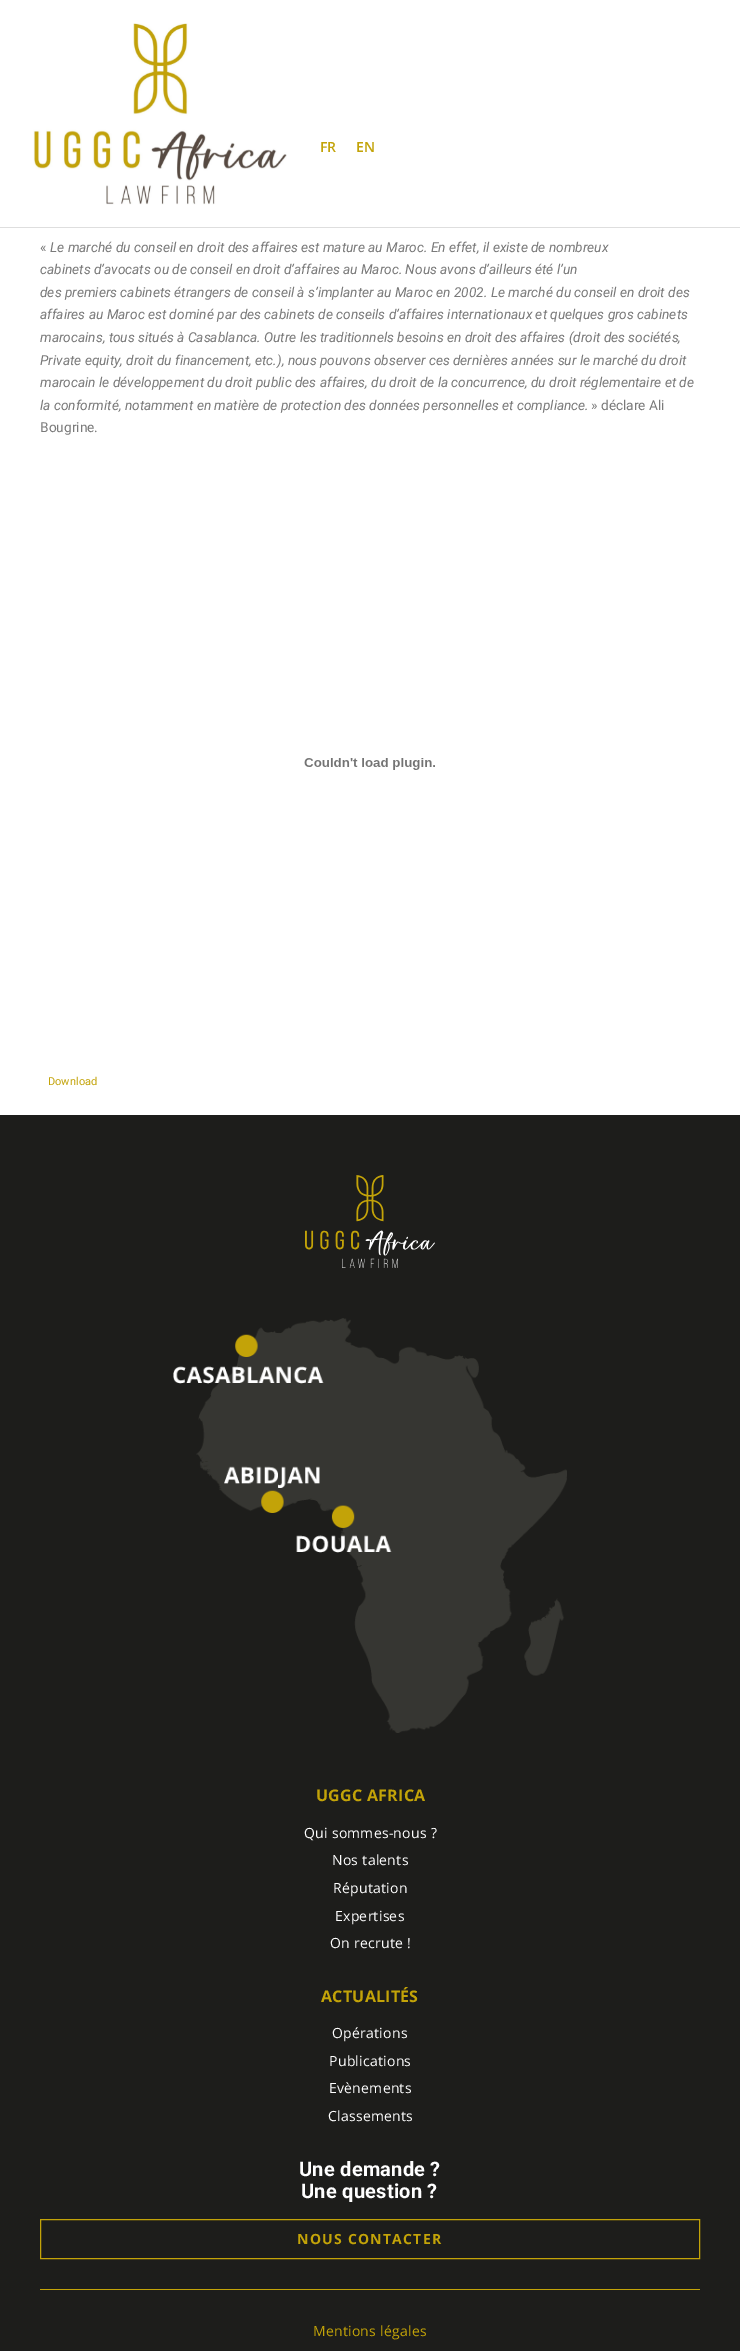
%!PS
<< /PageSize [740 2351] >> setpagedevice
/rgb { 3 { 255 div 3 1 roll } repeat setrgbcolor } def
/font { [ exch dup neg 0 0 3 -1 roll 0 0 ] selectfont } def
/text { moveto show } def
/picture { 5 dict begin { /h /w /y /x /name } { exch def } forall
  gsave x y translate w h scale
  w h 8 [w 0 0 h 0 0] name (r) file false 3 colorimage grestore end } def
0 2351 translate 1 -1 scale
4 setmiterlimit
255 255 255 rgb
0 0 740 2351 rectfill
222 222 222 rgb
0 227 740 1 rectfill
(img_01.rgb) 33 23 254 182 picture
(img_02.rgb) 304 758 131 12 picture
29 29 27 rgb
0 1115 740 1236 rectfill
(img_03.rgb) 305 1175 130 93 picture
(img_04.rgb) 173 1318 394 415 picture
195 163 8 rgb
40.5 2219.5 659 39 rectstroke
40 2289 660 1 rectfill
/OpenSans-SemiBold 14 font
(FR) 320 152 text
(EN) 356 152 text
/Roboto-Regular 13.7 font
122 122 122 rgb
(«) 40 252 text
/Roboto-Italic 13.7 font
(Le marché du conseil en droit des affaires est mature au Maroc. En effet, il existe de nombreux) 50 252 text
(cabinets d’avocats ou de conseil en droit d’affaires au Maroc. Nous avons d’ailleurs été l’un) 40 274 text
(des premiers cabinets étrangers de conseil à s’implanter au Maroc en 2002. Le marché du conseil en droit des) 40 297 text
(affaires au Maroc est dominé par des cabinets de conseils d’affaires internationaux et quelques gros cabinets) 40 319 text
(marocains, tous situés à Casablanca. Outre les traditionnels besoins en droit des affaires \(droit des sociétés,) 40 342 text
(Private equity, droit du financement, etc.\), nous pouvons observer ces dernières années sur le marché du droit) 40 365 text
(marocain le développement du droit public des affaires, du droit de la concurrence, du droit réglementaire et de) 40 387 text
(la conformité, notamment en matière de protection des données personnelles et compliance.) 40 410 text
/Roboto-Regular 13.7 font
(» déclare Ali) 591 410 text
(Bougrine.) 40 432 text
/Roboto-Regular 11 font
195 163 8 rgb
(Download) 48 1085 text
/OpenSans-Bold 16 font
316 1801 moveto 0.25 0 (UGGC AFRICA) ashow
/OpenSans-Regular 14 font
255 255 255 rgb
304 1838 moveto 0.25 0 (Qui sommes-nous ?) ashow
332 1865 moveto 0.25 0 (Nos talents) ashow
333 1893 moveto 0.25 0 (Réputation) ashow
335 1921 moveto 0.25 0 (Expertises) ashow
330 1948 moveto 0.25 0 (On recrute !) ashow
/OpenSans-Bold 16 font
195 163 8 rgb
321 2002 moveto 0.25 0 (ACTUALITÉS) ashow
/OpenSans-Regular 14 font
255 255 255 rgb
332 2038 moveto 0.25 0 (Opérations) ashow
329 2066 moveto 0.25 0 (Publications) ashow
329 2093 moveto 0.25 0 (Evènements) ashow
328 2121 moveto 0.25 0 (Classements) ashow
/Roboto-Bold 20 font
299 2176 moveto 0.25 0 (Une demande ?) ashow
301 2198 moveto 0.25 0 (Une question ?) ashow
/OpenSans-Bold 14 font
195 163 8 rgb
297 2244 moveto 1.25 0 (NOUS CONTACTER) ashow
/OpenSans-Regular 14 font
313 2336 moveto 0.25 0 (Mentions légales) ashow
showpage
